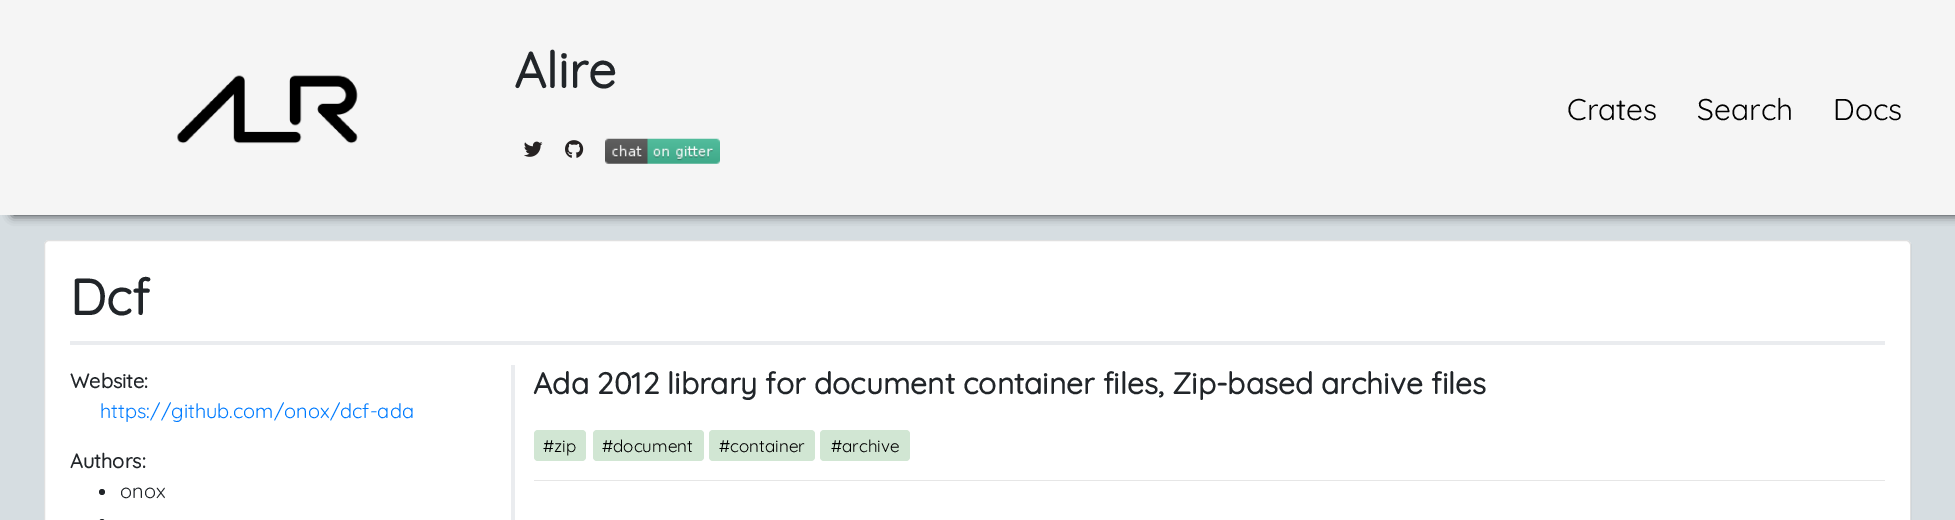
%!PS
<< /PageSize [1955 520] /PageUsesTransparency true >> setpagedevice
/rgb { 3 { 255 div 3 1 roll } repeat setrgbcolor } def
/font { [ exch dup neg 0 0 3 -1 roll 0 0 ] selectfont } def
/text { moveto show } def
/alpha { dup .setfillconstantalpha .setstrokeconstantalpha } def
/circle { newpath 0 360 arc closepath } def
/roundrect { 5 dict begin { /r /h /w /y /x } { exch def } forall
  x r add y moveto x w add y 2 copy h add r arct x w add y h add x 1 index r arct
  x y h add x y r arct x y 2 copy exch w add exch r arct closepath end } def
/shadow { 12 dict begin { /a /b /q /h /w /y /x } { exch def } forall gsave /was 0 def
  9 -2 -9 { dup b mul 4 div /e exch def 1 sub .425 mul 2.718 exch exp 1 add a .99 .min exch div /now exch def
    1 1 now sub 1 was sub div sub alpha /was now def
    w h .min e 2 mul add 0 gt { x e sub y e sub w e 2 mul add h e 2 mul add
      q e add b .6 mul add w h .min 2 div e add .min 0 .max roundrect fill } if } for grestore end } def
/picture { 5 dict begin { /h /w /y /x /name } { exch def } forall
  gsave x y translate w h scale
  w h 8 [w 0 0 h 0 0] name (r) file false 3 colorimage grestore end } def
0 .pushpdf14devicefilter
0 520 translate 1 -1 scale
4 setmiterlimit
214 221 225 rgb
0 0 1955 520 rectfill
33 37 41 rgb
13 0 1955 215 0 5 1 shadow
245 245 245 rgb
0 0 1955 215 rectfill
(img_01.rgb) 524 141 19 16 picture
(img_02.rgb) 565 140 19 18 picture
(img_03.rgb) 605 138 115 26 picture
(img_04.rgb) 177 75 181 69 picture
255 255 255 rgb
44 240 1867 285 5 roundrect fill
0.12 alpha
0 0 0 rgb
44.5 240.5 1866 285 4.5 roundrect stroke
1 alpha
234 236 239 rgb
70 341 1815 4 rectfill
511 365 4 155 rectfill
33 37 41 rgb
102 492 3 circle fill
99 519 6 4 3 roundrect fill
209 230 211 rgb
534 430 52 31 4 roundrect fill
593 430 111 31 4 roundrect fill
709 430 106 31 4 roundrect fill
820 430 90 31 4 roundrect fill
230 230 230 rgb
534 480 1351 1 rectfill
/Quicksand-Bold 50 font
33 37 41 rgb
(Alire) 514 88 text
/Quicksand-Light 30 font
0 0 0 rgb
(Crates) 1567 120 text
(Search) 1697 120 text
(Docs) 1833 120 text
/Quicksand-Bold 50 font
33 37 41 rgb
(Dcf) 70 315 text
/Quicksand-Bold 20 font
(Website:) 70 388 text
/Quicksand-Light 20 font
0 123 255 rgb
(https://github.com/onox/dcf-ada) 100 418 text
/Quicksand-Bold 20 font
33 37 41 rgb
(Authors:) 70 468 text
/Quicksand-Light 20 font
(onox) 120 498 text
/Quicksand-Bold 30 font
(Ada 2012 library for document container files, Zip-based archive files) 533 394 text
/Quicksand-Light 17 font
0 0 0 rgb
(#zip) 543 452 text
(#document) 602 452 text
(#container) 719 452 text
(#archive) 831 452 text
.poppdf14devicefilter showpage
